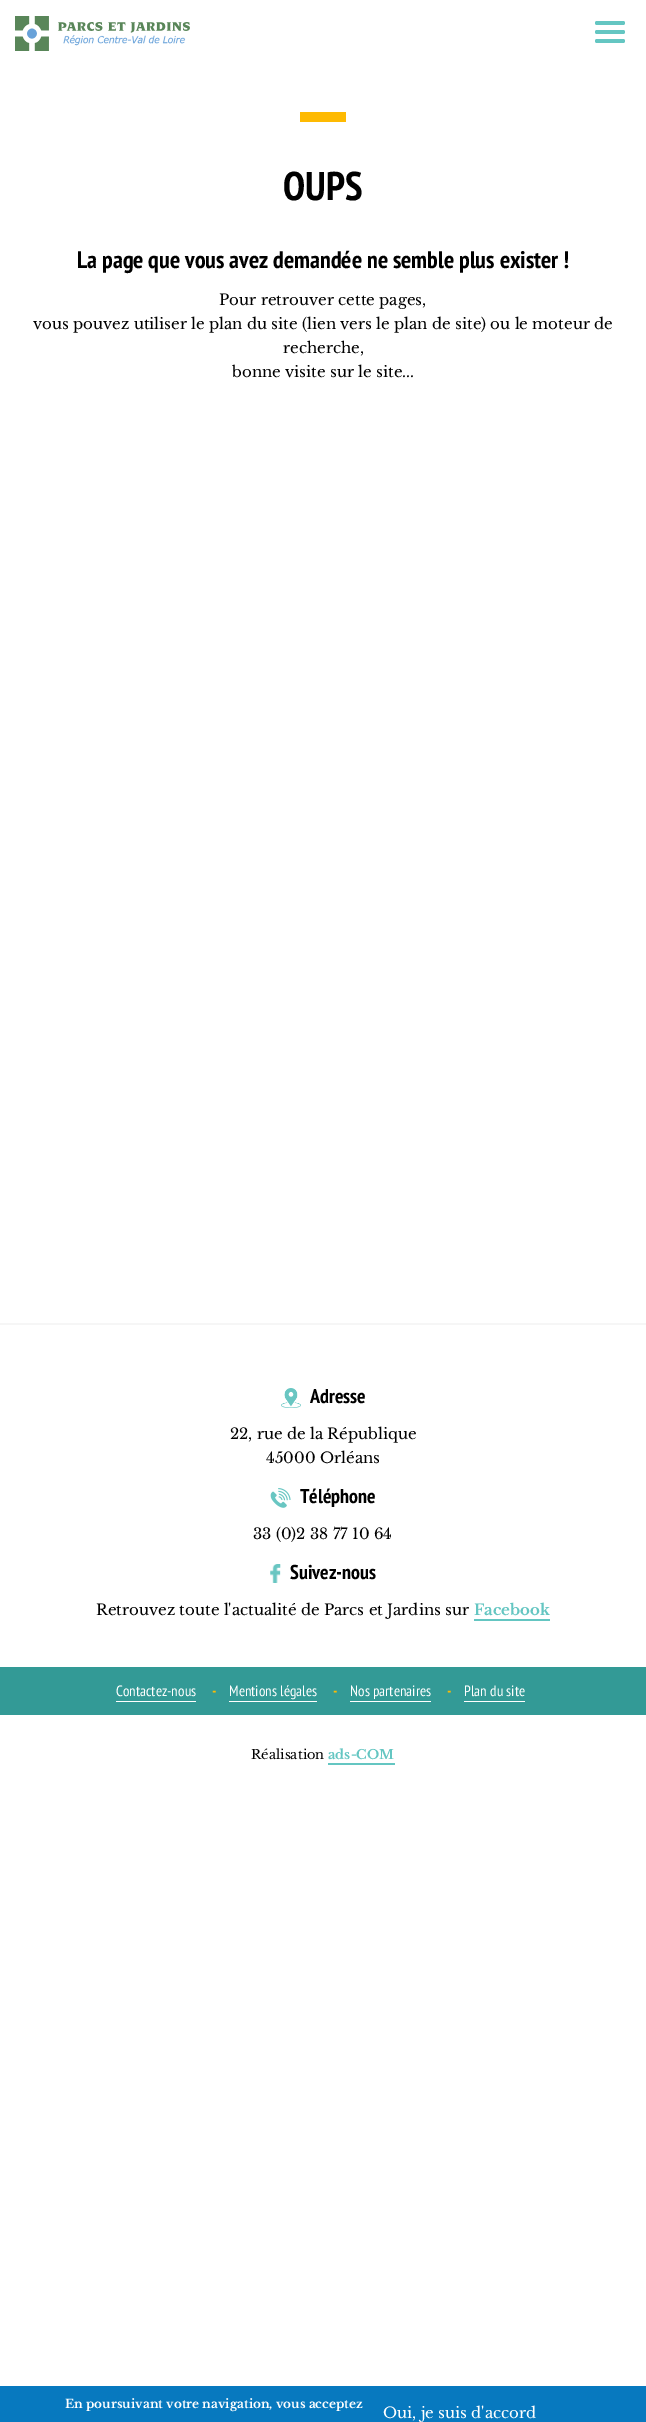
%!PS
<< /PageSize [646 2422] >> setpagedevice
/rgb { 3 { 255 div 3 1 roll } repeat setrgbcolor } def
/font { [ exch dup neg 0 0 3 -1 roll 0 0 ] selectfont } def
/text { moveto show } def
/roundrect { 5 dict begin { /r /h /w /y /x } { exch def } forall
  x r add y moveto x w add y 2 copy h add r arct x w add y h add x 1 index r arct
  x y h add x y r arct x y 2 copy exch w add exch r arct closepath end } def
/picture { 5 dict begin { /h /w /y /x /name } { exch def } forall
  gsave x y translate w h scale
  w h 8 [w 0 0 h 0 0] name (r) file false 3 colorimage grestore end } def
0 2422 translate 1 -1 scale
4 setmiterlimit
255 255 255 rgb
0 0 646 2422 rectfill
(img_01.rgb) 15 16 175 35 picture
100 198 194 rgb
595 21 30 4 2 roundrect fill
595 30 30 4 2 roundrect fill
595 39 30 4 2 roundrect fill
254 186 2 rgb
300 112 46 10 rectfill
246 246 246 rgb
0 1323 646 2 rectfill
(img_02.rgb) 281 1388 20 20 picture
(img_03.rgb) 270 1488 21 20 picture
(img_04.rgb) 270 1564 11 19 picture
100 198 194 rgb
474 1619 76 2 rectfill
51 154 150 rgb
0 1667 646 48 rectfill
255 255 255 rgb
116 1701 80 1 rectfill
229 1701 88 1 rectfill
350 1701 81 1 rectfill
464 1701 61 1 rectfill
100 198 194 rgb
328 1763 67 2 rectfill
7 121 191 rgb
0 2386 646 36 rectfill
/PTSansNarrow-Bold 40 font
0 0 0 rgb
(OUPS) 283 200 text
/PTSansNarrow-Bold 24 font
(La page que vous avez demandée ne semble plus exister !) 77 268 text
/LibreBaskerville-Regular 15 font
(Pour retrouver cette pages,) 219 305 text
(vous pouvez utiliser le plan du site \(lien vers le plan de site\) ou le moteur de) 33 329 text
(recherche,) 283 353 text
(bonne visite sur le site...) 232 377 text
/PTSansNarrow-Bold 20 font
(Adresse) 310 1403 text
/LibreBaskerville-Regular 15 font
(22, rue de la République) 230 1439 text
(45000 Orléans) 266 1463 text
/PTSansNarrow-Bold 20 font
(Téléphone) 300 1503 text
/LibreBaskerville-Regular 15 font
(33 \(0\)2 38 77 10 64) 253 1539 text
/PTSansNarrow-Bold 20 font
(Suivez-nous) 290 1579 text
/LibreBaskerville-Regular 15 font
(Retrouvez toute l'actualité de Parcs et Jardins sur) 96 1615 text
/LibreBaskerville-Bold 15 font
100 198 194 rgb
(Facebook) 474 1615 text
/PTSansNarrow-Regular 15 font
255 255 255 rgb
(Contactez-nous) 116 1696 text
/PTSansNarrow-Bold 15 font
254 186 2 rgb
(-) 212 1696 text
/PTSansNarrow-Regular 15 font
255 255 255 rgb
(Mentions légales) 229 1696 text
/PTSansNarrow-Bold 15 font
254 186 2 rgb
(-) 333 1696 text
/PTSansNarrow-Regular 15 font
255 255 255 rgb
(Nos partenaires) 350 1696 text
/PTSansNarrow-Bold 15 font
254 186 2 rgb
(-) 447 1696 text
/PTSansNarrow-Regular 15 font
255 255 255 rgb
(Plan du site) 464 1696 text
/LibreBaskerville-Regular 13 font
0 0 0 rgb
(Réalisation) 251 1759 text
/LibreBaskerville-Bold 13 font
100 198 194 rgb
(ads-COM) 328 1759 text
/LibreBaskerville-Bold 12 font
255 255 255 rgb
(En poursuivant votre navigation, vous acceptez) 65 2408 text
/LibreBaskerville-Regular 15 font
(Oui, je suis d'accord) 383 2418 text
showpage
